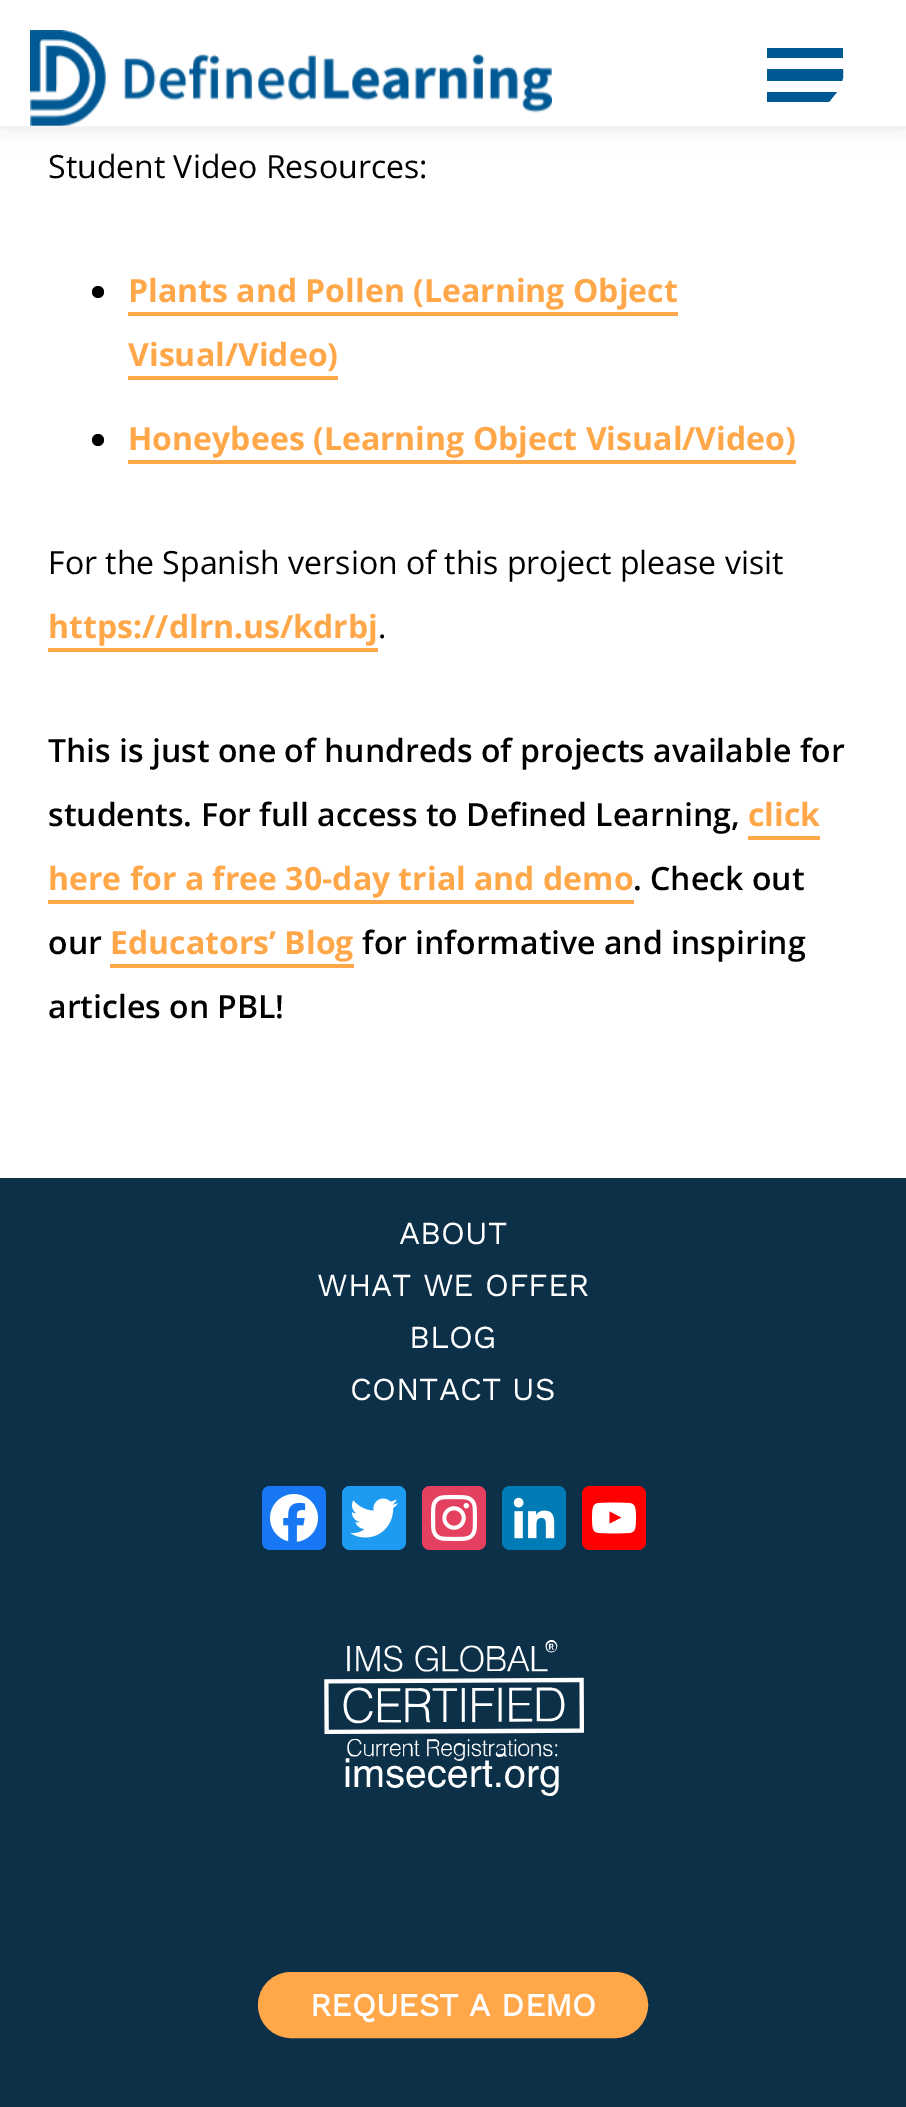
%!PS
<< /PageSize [906 2107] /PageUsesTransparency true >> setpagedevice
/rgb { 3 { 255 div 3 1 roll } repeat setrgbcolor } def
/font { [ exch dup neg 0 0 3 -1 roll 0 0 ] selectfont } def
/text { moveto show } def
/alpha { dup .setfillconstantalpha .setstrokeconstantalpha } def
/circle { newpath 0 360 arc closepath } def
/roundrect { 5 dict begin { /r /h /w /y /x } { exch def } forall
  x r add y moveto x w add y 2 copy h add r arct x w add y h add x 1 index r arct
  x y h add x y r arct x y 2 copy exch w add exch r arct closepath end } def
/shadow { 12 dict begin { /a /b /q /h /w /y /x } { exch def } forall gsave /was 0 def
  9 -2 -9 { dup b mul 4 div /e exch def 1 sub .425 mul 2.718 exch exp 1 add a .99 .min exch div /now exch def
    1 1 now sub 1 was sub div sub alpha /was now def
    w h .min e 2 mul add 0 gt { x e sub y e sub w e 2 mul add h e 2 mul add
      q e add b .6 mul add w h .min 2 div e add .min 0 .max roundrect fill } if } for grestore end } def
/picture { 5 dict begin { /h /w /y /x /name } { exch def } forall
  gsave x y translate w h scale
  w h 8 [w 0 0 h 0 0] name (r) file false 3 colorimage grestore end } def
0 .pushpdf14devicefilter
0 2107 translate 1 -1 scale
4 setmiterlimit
255 255 255 rgb
0 0 906 2107 rectfill
0 0 0 rgb
0 -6 906 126 0 15 0.16 shadow
255 255 255 rgb
0 0 906 126 rectfill
(img_01.rgb) 30 30 522 96 picture
0 89 148 rgb
767 102 moveto 0 -10 rlineto 70 0 rlineto -8 10 rlineto closepath 767 81 moveto 0 -12 rlineto 76 0 rlineto 0 4 1 8 -1 12 rcurveto closepath 767 48 moveto 76 0 rlineto 0 10 rlineto -76 0 rlineto closepath eofill
0 0 0 rgb
98 292 6 circle fill
255 167 73 rgb
128 312 550 4 rectfill
128 376 210 4 rectfill
0 0 0 rgb
98 440 6 circle fill
255 167 73 rgb
128 460 668 4 rectfill
48 648 330 4 rectfill
748 836 72 4 rectfill
48 900 586 4 rectfill
110 964 244 4 rectfill
12 48 72 rgb
0 1178 906 929 rectfill
24 119 242 rgb
262 1486 64 64 8 roundrect fill
(img_02.rgb) 270 1494 48 48 picture
29 155 240 rgb
342 1486 64 64 8 roundrect fill
(img_03.rgb) 350 1498 48 40 picture
228 64 95 rgb
422 1486 64 64 8 roundrect fill
(img_04.rgb) 431 1495 46 46 picture
0 123 181 rgb
502 1486 64 64 8 roundrect fill
(img_05.rgb) 513 1497 42 42 picture
255 0 0 rgb
582 1486 64 64 8 roundrect fill
(img_06.rgb) 592 1502 44 32 picture
(img_07.rgb) 324 1640 260 156 picture
255 167 73 rgb
260 1974 386 62 31 roundrect gsave fill grestore
4 setlinewidth
stroke
/OpenSans-Regular 32 font
0 0 0 rgb
(Student Video Resources:) 48 178 text
/OpenSans-Bold 32 font
255 167 73 rgb
(Plants and Pollen \(Learning Object) 128 302 text
(Visual/Video\)) 128 366 text
(Honeybees \(Learning Object Visual/Video\)) 128 450 text
/OpenSans-Regular 32 font
0 0 0 rgb
(For the Spanish version of this project please visit) 48 574 text
/OpenSans-Bold 32 font
255 167 73 rgb
(https://dlrn.us/kdrbj) 48 638 text
/OpenSans-Regular 32 font
0 0 0 rgb
(.) 378 638 text
/OpenSans-SemiBold 32 font
(This is just one of hundreds of projects available for) 48 762 text
(students. For full access to Defined Learning,) 48 826 text
/OpenSans-Bold 32 font
255 167 73 rgb
(click) 748 826 text
(here for a free 30-day trial and demo) 48 890 text
/OpenSans-SemiBold 32 font
0 0 0 rgb
(. Check out) 633 890 text
(our) 48 954 text
/OpenSans-Bold 32 font
255 167 73 rgb
(Educators’ Blog) 110 954 text
/OpenSans-SemiBold 32 font
0 0 0 rgb
(for informative and inspiring) 362 954 text
(articles on PBL!) 48 1018 text
/WorkSans-Regular 32 font
255 255 255 rgb
(ABOUT) 399 1244 text
(WHAT WE OFFER) 317 1296 text
(BLOG) 409 1348 text
(CONTACT US) 350 1400 text
/WorkSans-Bold 32 font
(REQUEST A DEMO) 310 2016 text
.poppdf14devicefilter showpage
